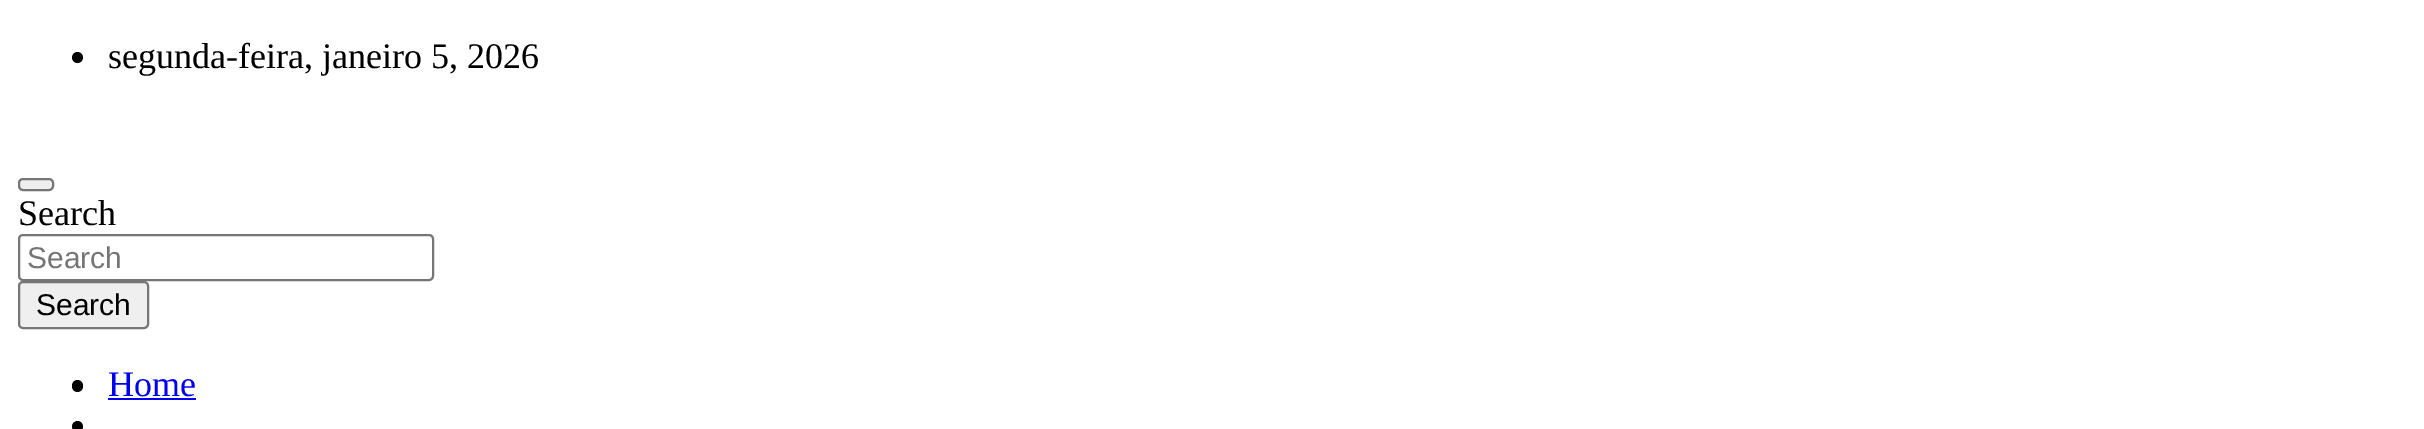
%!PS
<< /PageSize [2424 429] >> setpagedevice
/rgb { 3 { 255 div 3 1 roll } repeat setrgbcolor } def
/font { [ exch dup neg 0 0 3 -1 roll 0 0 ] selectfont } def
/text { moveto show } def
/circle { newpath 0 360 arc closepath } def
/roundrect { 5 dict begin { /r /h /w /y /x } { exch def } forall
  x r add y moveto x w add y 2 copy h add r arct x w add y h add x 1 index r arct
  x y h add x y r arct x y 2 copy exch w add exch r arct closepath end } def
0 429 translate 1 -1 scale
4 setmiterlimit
255 255 255 rgb
0 0 2424 429 rectfill
0 0 0 rgb
77.5 57.5 5.5 circle fill
239 239 239 rgb
19 179 34 11 4 roundrect gsave fill grestore
118 118 118 rgb
2 setlinewidth
stroke
19 235 414 45 4 roundrect stroke
239 239 239 rgb
19 282 129 46 4 roundrect gsave fill grestore
118 118 118 rgb
stroke
0 0 0 rgb
72 380 11 12 5.5 roundrect fill
0 0 238 rgb
108 398 88 2 rectfill
0 0 0 rgb
77.5 426.5 5.5 circle fill
/LiberationSerif-Regular 36 font
(segunda-feira, janeiro 5, 2026) 108 68 text
(Search) 18 225 text
/LiberationSans-Regular 30 font
117 117 117 rgb
(Search) 27 268 text
0 0 0 rgb
(Search) 36 315 text
/LiberationSerif-Regular 36 font
0 0 238 rgb
(Home) 108 396 text
showpage
